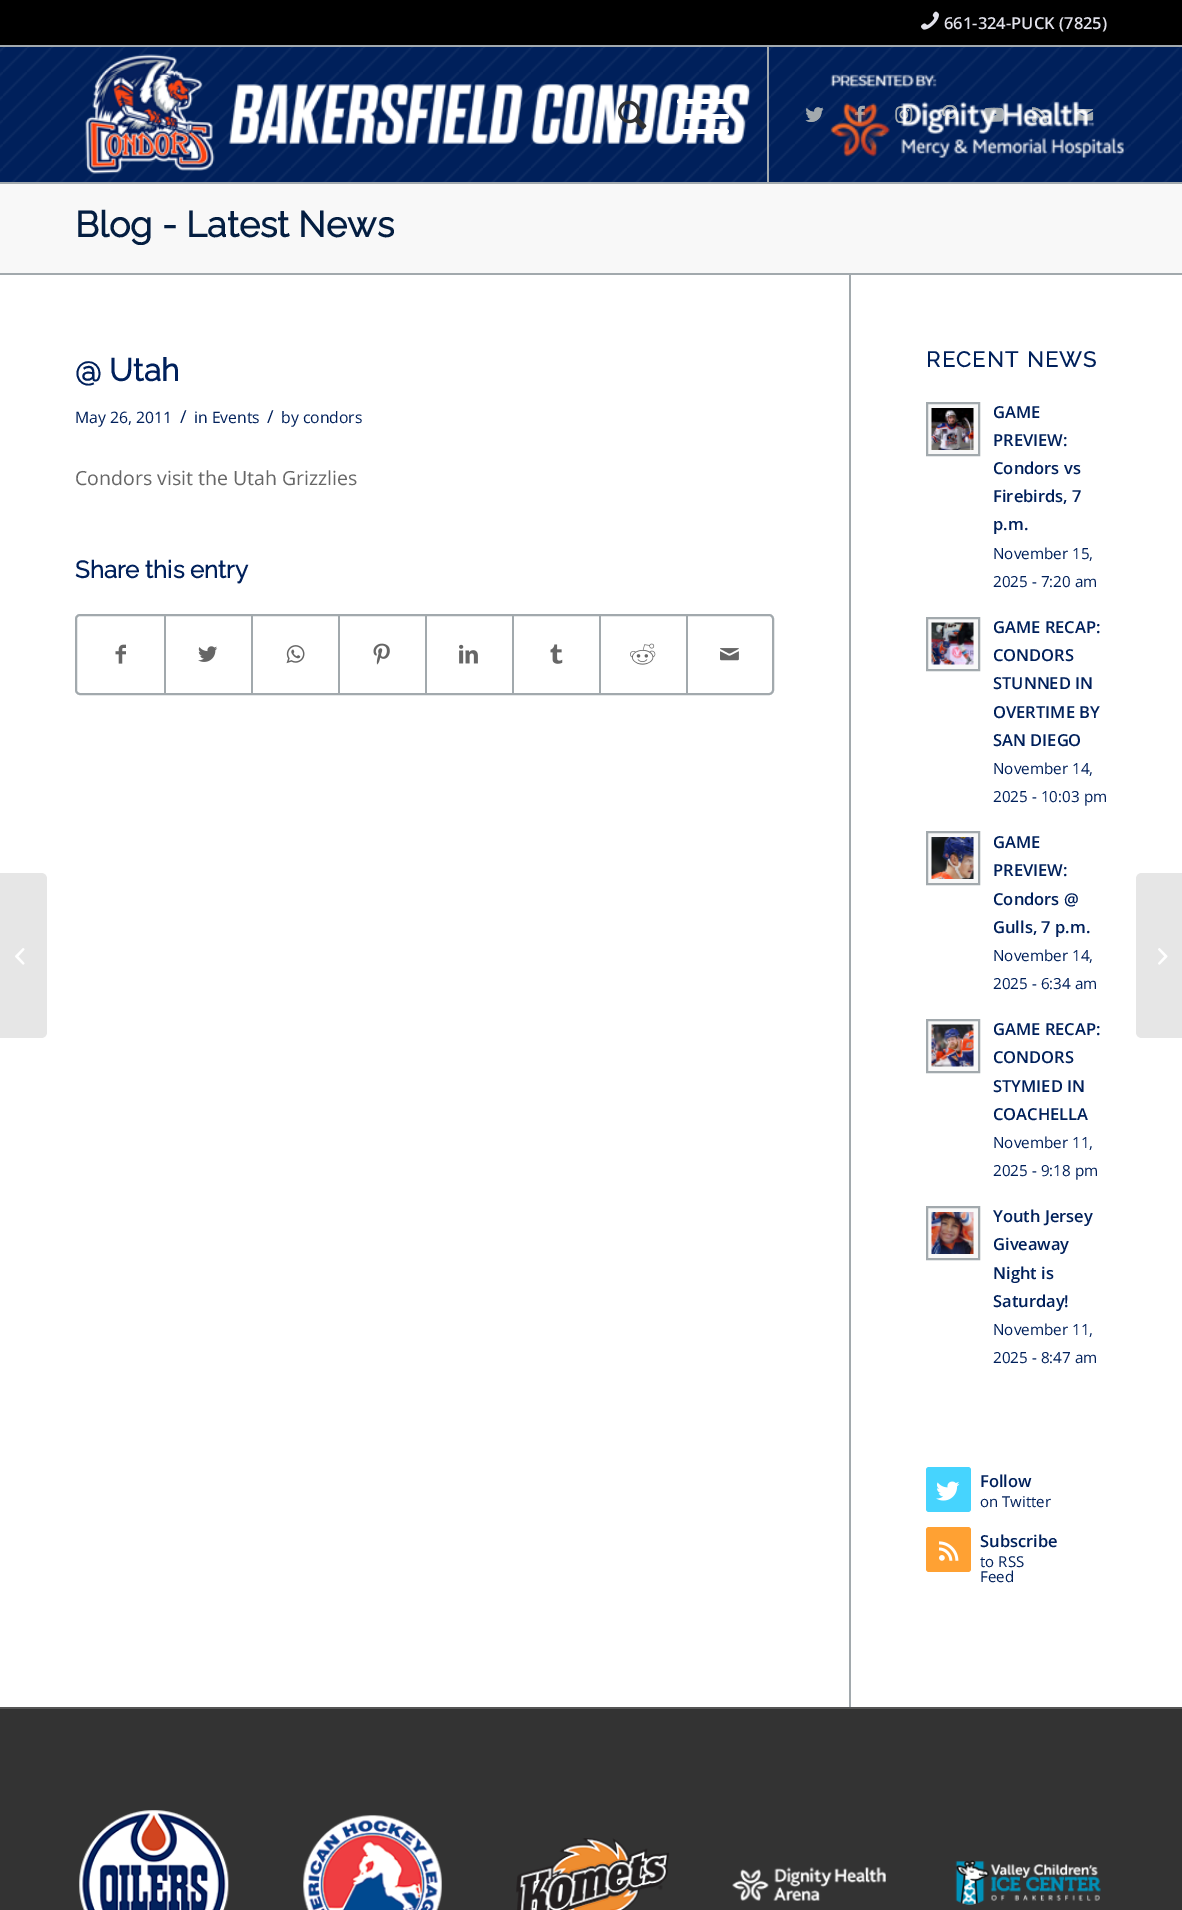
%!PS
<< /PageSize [1182 1910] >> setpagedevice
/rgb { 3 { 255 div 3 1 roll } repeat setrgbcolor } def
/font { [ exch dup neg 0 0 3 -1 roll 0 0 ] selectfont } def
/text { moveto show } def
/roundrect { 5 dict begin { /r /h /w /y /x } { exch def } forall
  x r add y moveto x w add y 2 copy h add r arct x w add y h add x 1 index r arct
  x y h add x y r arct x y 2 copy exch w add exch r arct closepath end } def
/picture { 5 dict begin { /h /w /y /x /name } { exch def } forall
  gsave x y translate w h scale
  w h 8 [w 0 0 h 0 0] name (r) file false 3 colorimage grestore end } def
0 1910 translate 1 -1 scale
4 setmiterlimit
248 248 248 rgb
0 0 1182 1910 rectfill
0 0 0 rgb
0 0 1182 45 rectfill
162 169 173 rgb
0 45 1182 2 rectfill
(img_01.rgb) 921 11 18 19 picture
0 32 91 rgb
0 47 1182 135 rectfill
(img_02.rgb) 0 47 1182 135 picture
162 169 173 rgb
0 182 1182 2 rectfill
(img_03.rgb) 85 54 666 120 picture
767 47 2 135 rectfill
(img_04.rgb) 618 100 29 30 picture
255 255 255 rgb
677 114 52 5 2.5 roundrect fill
677 99 52 5 2.5 roundrect fill
677 129 52 5 2.5 roundrect fill
(img_05.rgb) 805 107 19 15 picture
(img_06.rgb) 855 105 10 19 picture
(img_07.rgb) 895 106 18 18 picture
(img_08.rgb) 942 104 16 21 picture
(img_09.rgb) 984 107 20 15 picture
(img_10.rgb) 1032 107 15 16 picture
(img_11.rgb) 1075 109 19 12 picture
(img_12.rgb) 805 107 19 15 picture
(img_13.rgb) 855 105 10 19 picture
(img_14.rgb) 895 106 18 18 picture
(img_15.rgb) 942 104 16 21 picture
(img_16.rgb) 984 107 20 15 picture
(img_17.rgb) 1032 107 15 16 picture
(img_18.rgb) 1075 109 19 12 picture
(img_19.rgb) 830 74 294 84 picture
0 275 1182 1432 rectfill
230 230 230 rgb
0 873 moveto 41 0 rlineto 3.5 0 6 2.5 6 6 rcurveto 0 153 rlineto 0 3.5 -2.5 6 -6 6 rcurveto -41 0 rlineto closepath fill
(img_20.rgb) 15 948 10 17 picture
162 169 173 rgb
0 273 1182 2 rectfill
2 setlinewidth
76 615 697 79 4 roundrect stroke
(img_21.rgb) 115 644 11 20 picture
164 615 2 78 rectfill
(img_22.rgb) 198 646 20 16 picture
251 615 2 78 rectfill
(img_23.rgb) 286 645 19 19 picture
338 615 2 78 rectfill
(img_24.rgb) 373 643 17 22 picture
425 615 2 78 rectfill
(img_25.rgb) 459 644 19 20 picture
512 615 2 78 rectfill
(img_26.rgb) 550 644 13 20 picture
599 615 2 78 rectfill
(img_27.rgb) 630 643 26 22 picture
686 615 2 78 rectfill
(img_28.rgb) 720 648 19 13 picture
849 275 2 1432 rectfill
248 248 248 rgb
927 403 moveto 52 0 rlineto 0 52 rlineto -52 0 rlineto closepath gsave fill grestore
162 169 173 rgb
stroke
(img_29.rgb) 931 408 43 42 picture
248 248 248 rgb
927 618 moveto 52 0 rlineto 0 52 rlineto -52 0 rlineto closepath gsave fill grestore
162 169 173 rgb
stroke
(img_30.rgb) 931 622 43 43 picture
248 248 248 rgb
927 832 moveto 52 0 rlineto 0 52 rlineto -52 0 rlineto closepath gsave fill grestore
162 169 173 rgb
stroke
(img_31.rgb) 931 837 43 42 picture
248 248 248 rgb
927 1020 moveto 52 0 rlineto 0 52 rlineto -52 0 rlineto closepath gsave fill grestore
162 169 173 rgb
stroke
(img_32.rgb) 931 1024 43 43 picture
248 248 248 rgb
927 1207 moveto 52 0 rlineto 0 52 rlineto -52 0 rlineto closepath gsave fill grestore
162 169 173 rgb
stroke
(img_33.rgb) 931 1212 43 42 picture
70 212 254 rgb
926 1467 45 45 3 roundrect fill
(img_34.rgb) 936 1481 24 20 picture
255 161 51 rgb
926 1527 45 45 3 roundrect fill
(img_35.rgb) 939 1541 20 20 picture
51 51 51 rgb
0 1709 1182 201 rectfill
85 85 85 rgb
0 1707 1182 2 rectfill
(img_36.rgb) 79 1810 150 100 picture
(img_37.rgb) 303 1815 139 95 picture
(img_38.rgb) 516 1838 153 72 picture
(img_39.rgb) 732 1867 154 34 picture
(img_40.rgb) 955 1860 146 45 picture
230 230 230 rgb
1142 873 moveto 40 0 rlineto 0 165 rlineto -40 0 rlineto -3.5 0 -6 -2.5 -6 -6 rcurveto 0 -153 rlineto 0 -3.5 2.5 -6 6 -6 rcurveto closepath fill
(img_41.rgb) 1158 948 10 17 picture
/OpenSans-SemiBold 16.5 font
226 226 235 rgb
(661-324-PUCK \(7825\)) 944 29 text
/Raleway-Bold 36 font
4 30 65 rgb
(Blog - Latest News) 75 237 text
/Raleway-Bold 31.5 font
0 32 91 rgb
(@ Utah) 75 381 text
/OpenSans-Regular 15.75 font
(May 26, 2011) 75 423 text
/OpenSans-Regular 18 font
(/) 180 423 text
/OpenSans-Regular 15.75 font
(in Events) 194 423 text
/OpenSans-Regular 18 font
(/) 267 423 text
/OpenSans-Regular 15.75 font
(by condors) 281 423 text
/OpenSans-Regular 19.5 font
102 102 102 rgb
(Condors visit the Utah Grizzlies) 75 485 text
/Raleway-Bold 24 font
0 32 91 rgb
(Share this entry) 75 578 text
/Raleway-Bold 21.5 font
926 367 moveto 1.5 0 (RECENT NEWS) ashow
/OpenSans-SemiBold 16.5 font
(GAME) 993 418 text
(PREVIEW:) 993 446 text
(Condors vs) 993 474 text
(Firebirds, 7) 993 502 text
(p.m.) 993 530 text
/OpenSans-Regular 15.25 font
(November 15,) 993 559 text
(2025 - 7:20 am) 993 587 text
/OpenSans-SemiBold 16.5 font
(GAME RECAP:) 993 633 text
(CONDORS) 993 661 text
(STUNNED IN) 993 689 text
(OVERTIME BY) 993 718 text
(SAN DIEGO) 993 746 text
/OpenSans-Regular 15.25 font
(November 14,) 993 774 text
(2025 - 10:03 pm) 993 802 text
/OpenSans-SemiBold 16.5 font
(GAME) 993 848 text
(PREVIEW:) 993 876 text
(Condors @) 993 905 text
(Gulls, 7 p.m.) 993 933 text
/OpenSans-Regular 15.25 font
(November 14,) 993 961 text
(2025 - 6:34 am) 993 989 text
/OpenSans-SemiBold 16.5 font
(GAME RECAP:) 993 1035 text
(CONDORS) 993 1063 text
(STYMIED IN) 993 1092 text
(COACHELLA) 993 1120 text
/OpenSans-Regular 15.25 font
(November 11,) 993 1148 text
(2025 - 9:18 pm) 993 1176 text
/OpenSans-SemiBold 16.5 font
(Youth Jersey) 993 1222 text
(Giveaway) 993 1250 text
(Night is) 993 1279 text
(Saturday!) 993 1307 text
/OpenSans-Regular 15.25 font
(November 11,) 993 1335 text
(2025 - 8:47 am) 993 1363 text
/OpenSans-SemiBold 16.5 font
(Follow) 980 1487 text
/OpenSans-Regular 15 font
(on Twitter) 980 1507 text
/OpenSans-SemiBold 16.5 font
(Subscribe) 980 1547 text
/OpenSans-Regular 15 font
(to RSS) 980 1567 text
(Feed) 980 1582 text
showpage
